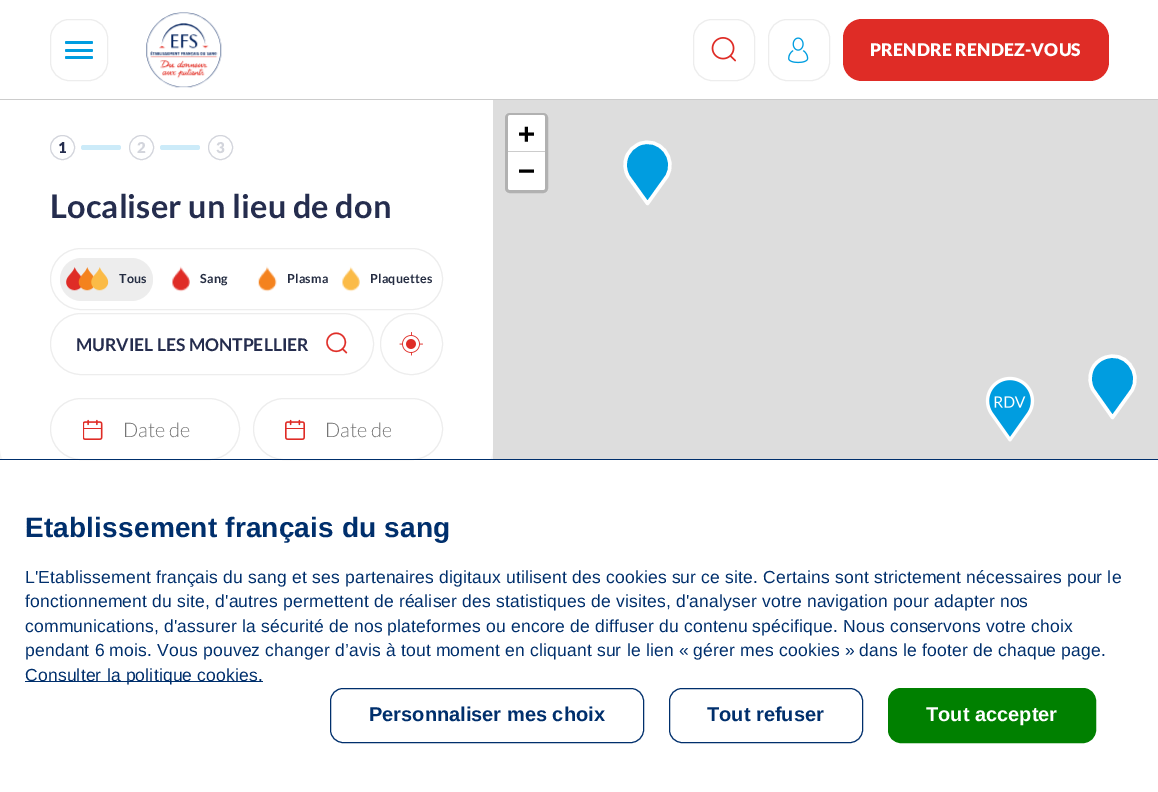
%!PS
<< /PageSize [1158 792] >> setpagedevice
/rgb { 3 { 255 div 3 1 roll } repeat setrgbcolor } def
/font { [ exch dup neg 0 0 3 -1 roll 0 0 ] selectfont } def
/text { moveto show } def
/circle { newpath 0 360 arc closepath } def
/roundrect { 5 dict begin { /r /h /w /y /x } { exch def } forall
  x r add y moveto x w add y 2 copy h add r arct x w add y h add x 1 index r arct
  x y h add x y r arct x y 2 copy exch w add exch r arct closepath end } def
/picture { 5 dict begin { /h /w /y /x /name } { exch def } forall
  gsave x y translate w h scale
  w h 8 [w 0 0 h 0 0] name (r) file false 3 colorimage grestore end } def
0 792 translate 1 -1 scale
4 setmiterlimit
255 255 255 rgb
0 0 1158 792 rectfill
204 204 204 rgb
0 99 1158 1 rectfill
237 237 237 rgb
50.5 19.5 57 61 18.5 roundrect stroke
0 157 224 rgb
65 41 28 3 1.5 roundrect fill
65 49 28 3 1.5 roundrect fill
65 56 28 3 1.5 roundrect fill
(img_01.rgb) 146 12 76 76 picture
237 237 237 rgb
693.5 19.5 61 61 18.5 roundrect stroke
(img_02.rgb) 711 37 25 25 picture
768.5 19.5 61 61 18.5 roundrect stroke
(img_03.rgb) 788 37 21 27 picture
223 44 38 rgb
843 19 266 62 19 roundrect fill
245 245 245 rgb
0 447 493 12 rectfill
255 255 255 rgb
0 100 moveto 493 0 rlineto 0 347 rlineto 0 17 -14 31 -31 31 rcurveto -431 0 rlineto -17 0 -31 -14 -31 -31 rcurveto closepath fill
211 213 220 rgb
62.5 147.5 12 circle stroke
204 235 249 rgb
81 145 40 5 2.5 roundrect fill
211 213 220 rgb
141.5 147.5 12 circle stroke
204 235 249 rgb
160 145 40 5 2.5 roundrect fill
211 213 220 rgb
220.5 147.5 12 circle stroke
237 237 237 rgb
50.5 248.5 392 61 30.5 roundrect stroke
60 258 93 43 21.5 roundrect fill
(img_04.rgb) 66 267 43 24 picture
(img_05.rgb) 172 266 18 26 picture
(img_06.rgb) 258 266 19 26 picture
(img_07.rgb) 342 266 18 26 picture
(img_08.rgb) 83 419 20 21 picture
50.5 398.5 189 61 30.5 roundrect stroke
(img_09.rgb) 285 419 20 21 picture
253.5 398.5 189 61 30.5 roundrect stroke
50.5 313.5 323 61 30.5 roundrect stroke
(img_10.rgb) 326 332 22 22 picture
(img_11.rgb) 399 332 24 24 picture
380.5 313.5 62 61 30.5 roundrect stroke
221 221 221 rgb
493 100 665 359 rectfill
177 177 177 rgb
3 setlinewidth
506.5 114.5 40 77 3.5 roundrect stroke
255 255 255 rgb
510.5 115 moveto 32 0 rlineto 1.5 0 2.5 1 2.5 2.5 rcurveto 0 35.5 rlineto -37 0 rlineto 0 -35.5 rlineto 0 -1.5 1 -2.5 2.5 -2.5 rcurveto closepath fill
204 204 204 rgb
508 151 37 1 rectfill
255 255 255 rgb
508 153 moveto 37 0 rlineto 0 34.5 rlineto 0 1.5 -1 2.5 -2.5 2.5 rcurveto -32 0 rlineto -1.5 0 -2.5 -1 -2.5 -2.5 rcurveto closepath fill
0 157 224 rgb
666 177 moveto 12 -18 -7 -42 -27 -33 rcurveto -6 2 -10 7 -12 12 rcurveto -3 7 -2 15 2 21 rcurveto 19 27 rlineto closepath fill
255 255 255 rgb
3.4 setlinewidth
1 setlinejoin
666.5 177 moveto 11.5 -18 -7 -41.5 -27.5 -33 rcurveto -5.5 2.5 -10 6.5 -12 12 rcurveto -3 6.5 -2.5 14.5 1.5 21 rcurveto 19 26.5 rlineto closepath stroke
(img_12.rgb) 985 376 50 66 picture
0 157 224 rgb
1131 391 moveto 12 -18 -7 -42 -27 -33 rcurveto -6 2 -10 6 -12 12 rcurveto -3 6 -2 14 2 21 rcurveto 19 26 rlineto closepath fill
255 255 255 rgb
1131.5 391 moveto 11.5 -18 -7 -42 -27.5 -33 rcurveto -5.5 2 -10 6.5 -12 11.5 rcurveto -3 7 -2.5 15 1.5 21 rcurveto 19 27 rlineto closepath stroke
0 47 108 rgb
0 459 1158 1 rectfill
25 681 238 1 rectfill
1 setlinewidth
0 setlinejoin
330.5 688.5 313 54 12.5 roundrect stroke
669.5 688.5 193 54 12.5 roundrect stroke
0 128 0 rgb
888.5 688.5 207 54 12.5 roundrect gsave fill grestore
stroke
/Lato-Black 17.5 font
255 255 255 rgb
870 56 moveto 0.18 0 (PRENDRE RENDEZ-VOUS) ashow
/Lato-Black 15 font
37 45 78 rgb
58 153 moveto 0.18 0 (1) ashow
211 213 220 rgb
137 153 moveto 0.18 0 (2) ashow
216 153 moveto 0.18 0 (3) ashow
/Lato-Bold 32.5 font
37 45 78 rgb
50 218 moveto 0.18 0 (Localiser un lieu de don) ashow
/Lato-Bold 12.5 font
37 45 66 rgb
119 283 moveto 0.18 0 (Tous) ashow
200 283 moveto 0.18 0 (Sang) ashow
287 283 moveto 0.18 0 (Plasma) ashow
370 283 moveto 0.18 0 (Plaquettes) ashow
/Lato-Light 20 font
117 117 117 rgb
(Date de) 123 437 text
gsave
325 418 66 23 rectclip
(Date de) 325 437 text
grestore
/Lato-Bold 17.5 font
37 45 78 rgb
(MURVIEL LES MONTPELLIER) 76 351 text
/DejaVuSansMono-Bold 28 font
0 0 0 rgb
518 143 moveto 0.18 0 (+) ashow
518 180 moveto 0.18 0 (−) ashow
/LiberationSans-Bold 28 font
0 47 108 rgb
25 537 moveto 0.18 0 (Etablissement français du sang) ashow
/LiberationSans-Regular 17.5 font
25 583 moveto 0.18 0 (L'Etablissement français du sang et ses partenaires digitaux utilisent des cookies sur ce site. Certains sont strictement nécessaires pour le) ashow
25 607 moveto 0.18 0 (fonctionnement du site, d'autres permettent de réaliser des statistiques de visites, d'analyser votre navigation pour adapter nos) ashow
25 632 moveto 0.18 0 (communications, d'assurer la sécurité de nos plateformes ou encore de diffuser du contenu spécifique. Nous conservons votre choix) ashow
25 656 moveto 0.18 0 (pendant 6 mois. Vous pouvez changer d’avis à tout moment en cliquant sur le lien « gérer mes cookies » dans le footer de chaque page.) ashow
25 681 moveto 0.18 0 (Consulter la politique cookies.) ashow
/LiberationSans-Bold 20 font
(Personnaliser mes choix) 369 721 text
(Tout refuser) 707 721 text
255 255 255 rgb
(Tout accepter) 926 721 text
showpage
